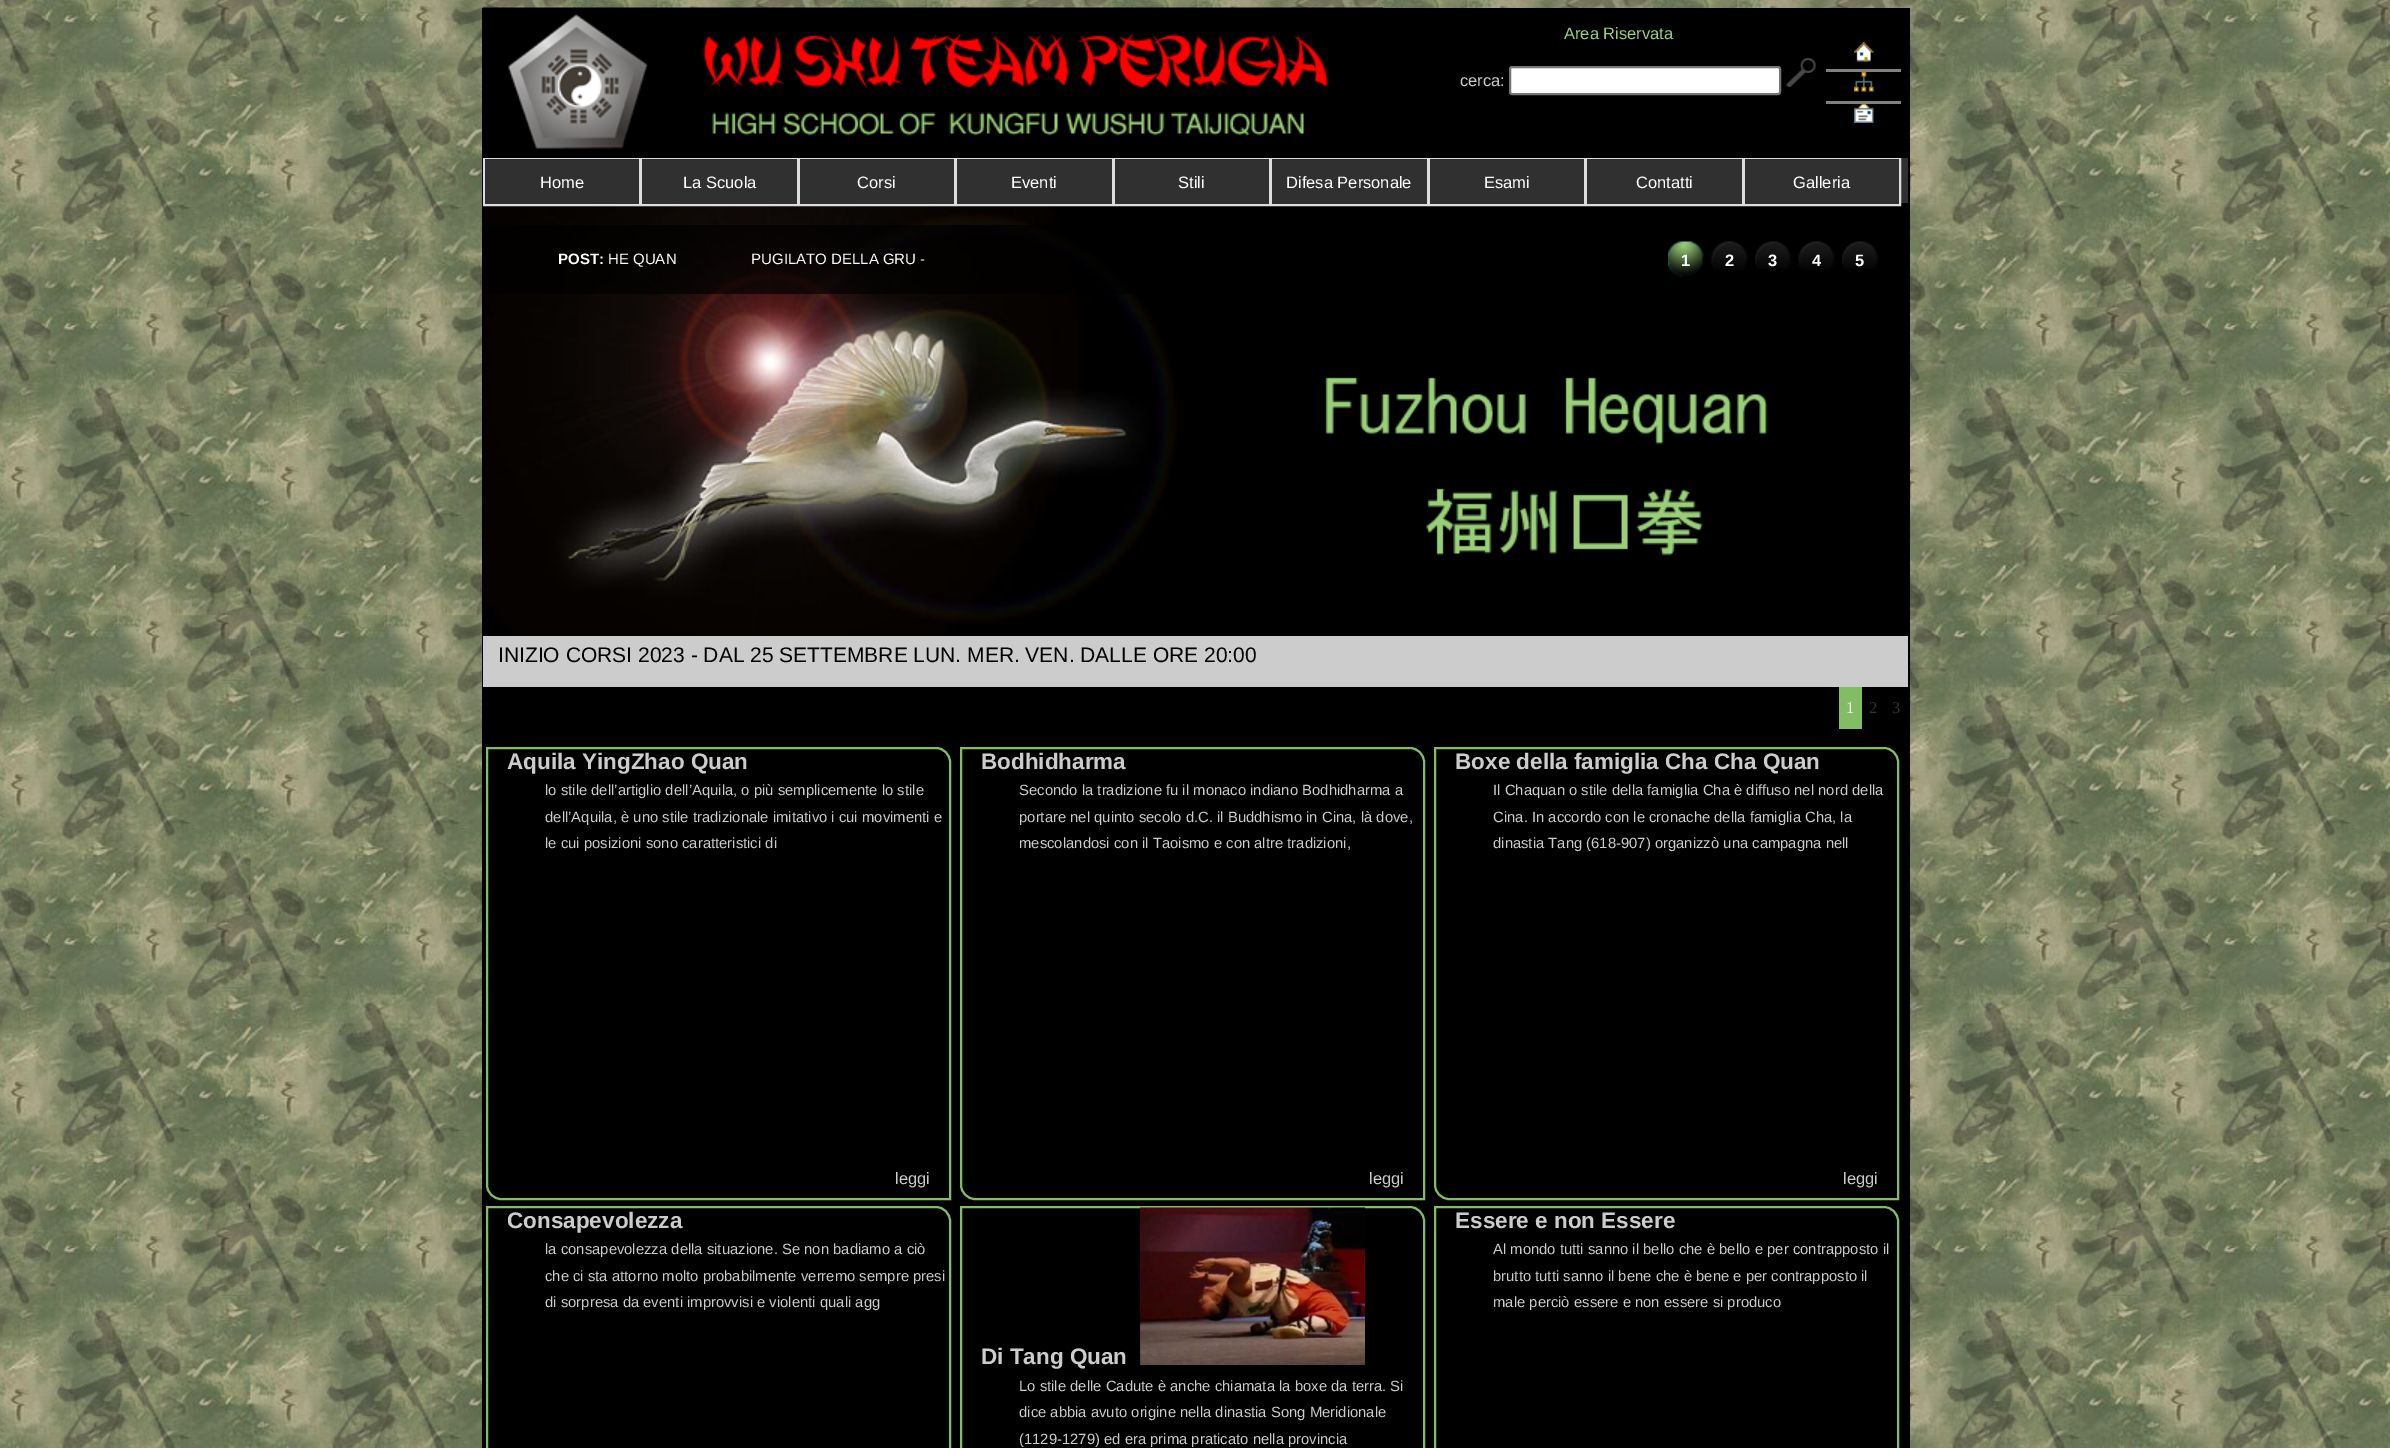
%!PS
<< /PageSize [2390 1448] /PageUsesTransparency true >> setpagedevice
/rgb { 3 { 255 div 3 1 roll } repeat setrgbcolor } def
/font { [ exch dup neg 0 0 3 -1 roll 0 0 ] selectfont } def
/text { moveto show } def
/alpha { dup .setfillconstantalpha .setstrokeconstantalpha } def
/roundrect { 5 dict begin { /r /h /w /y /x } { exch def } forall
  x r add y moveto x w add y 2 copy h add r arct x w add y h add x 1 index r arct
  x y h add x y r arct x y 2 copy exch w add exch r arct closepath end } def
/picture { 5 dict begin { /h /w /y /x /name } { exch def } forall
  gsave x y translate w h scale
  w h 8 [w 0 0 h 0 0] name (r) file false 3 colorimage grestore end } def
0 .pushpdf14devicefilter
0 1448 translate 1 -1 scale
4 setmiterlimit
255 255 255 rgb
0 0 2390 1448 rectfill
(img_01.rgb) 0 0 2390 1448 picture
0 0 0 rgb
482 8 1428 1440 rectfill
(img_02.rgb) 483 7 900 142 picture
255 255 255 rgb
1510 67 270 27 2 roundrect gsave fill grestore
118 118 118 rgb
2 setlinewidth
stroke
(img_03.rgb) 1786 58 30 29 picture
(img_04.rgb) 1854 42 20 20 picture
128 128 128 rgb
1826 69 75 3 rectfill
(img_05.rgb) 1854 72 20 20 picture
1826 101 75 3 rectfill
(img_06.rgb) 1854 104 20 19 picture
48 48 48 rgb
1901 158 7 45 rectfill
(img_07.rgb) 483 203 1425 433 picture
221 221 221 rgb
484 159 156 46 rectstroke
48 48 48 rgb
485 159 154 45 rectfill
221 221 221 rgb
642 159 155 46 rectstroke
48 48 48 rgb
642 159 155 45 rectfill
221 221 221 rgb
799 159 156 46 rectstroke
48 48 48 rgb
800 159 154 45 rectfill
221 221 221 rgb
957 159 155 46 rectstroke
48 48 48 rgb
957 159 155 45 rectfill
221 221 221 rgb
1114 159 156 46 rectstroke
48 48 48 rgb
1115 159 154 45 rectfill
221 221 221 rgb
1272 159 155 46 rectstroke
48 48 48 rgb
1272 159 155 45 rectfill
221 221 221 rgb
1429 159 156 46 rectstroke
48 48 48 rgb
1430 159 154 45 rectfill
221 221 221 rgb
1587 159 155 46 rectstroke
48 48 48 rgb
1587 159 155 45 rectfill
221 221 221 rgb
1744 159 156 46 rectstroke
48 48 48 rgb
1745 159 154 45 rectfill
0.67 alpha
0 0 0 rgb
483 225 650 69 rectfill
1 alpha
(img_08.rgb) 1668 241 36 37 picture
(img_09.rgb) 1711 241 37 29 picture
(img_10.rgb) 1755 241 36 28 picture
(img_09.rgb) 1798 241 37 29 picture
(img_11.rgb) 1842 241 36 28 picture
204 204 204 rgb
483 636 1425 51 rectfill
131 189 99 rgb
1839 687 23 42 rectfill
487 748 moveto 449 0 rlineto 7.5 0 14 6.5 14 14 rcurveto 0 437 rlineto -449 0 rlineto -7.5 0 -14 -6.5 -14 -14 rcurveto closepath stroke
961 748 moveto 449 0 rlineto 7.5 0 14 6.5 14 14 rcurveto 0 437 rlineto -449 0 rlineto -7.5 0 -14 -6.5 -14 -14 rcurveto closepath stroke
1435 748 moveto 449 0 rlineto 7.5 0 14 6.5 14 14 rcurveto 0 437 rlineto -449 0 rlineto -7.5 0 -14 -6.5 -14 -14 rcurveto closepath stroke
487 1207 moveto 449 0 rlineto 7.5 0 14 6.5 14 14 rcurveto 0 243 rlineto -449 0 rlineto -7.5 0 -14 -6.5 -14 -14 rcurveto closepath stroke
1435 1207 moveto 449 0 rlineto 7.5 0 14 6.5 14 14 rcurveto 0 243 rlineto -449 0 rlineto -7.5 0 -14 -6.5 -14 -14 rcurveto closepath stroke
961 1207 moveto 449 0 rlineto 7.5 0 14 6.5 14 14 rcurveto 0 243 rlineto -449 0 rlineto -7.5 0 -14 -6.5 -14 -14 rcurveto closepath stroke
(img_12.rgb) 1140 1207 225 158 picture
/LiberationSans-Regular 16.5 font
153 207 120 rgb
(Area Riservata) 1564 39 text
204 204 204 rgb
(cerca:) 1460 86 text
255 255 255 rgb
(Home) 540 188 text
(La Scuola) 683 188 text
(Corsi) 857 188 text
(Eventi) 1011 188 text
(Stili) 1178 188 text
(Difesa Personale) 1286 188 text
(Esami) 1484 188 text
(Contatti) 1636 188 text
(Galleria) 1793 188 text
/LiberationSans-Bold 15 font
(POST:) 558 264 text
/LiberationSans-Regular 15 font
(HE QUAN) 608 264 text
(PUGILATO DELLA GRU -) 751 264 text
/LiberationSans-Bold 16.5 font
(1) 1681 266 text
(2) 1725 266 text
(3) 1768 266 text
(4) 1812 266 text
(5) 1855 266 text
/LiberationSans-Regular 21 font
0 0 0 rgb
(INIZIO CORSI 2023 - DAL 25 SETTEMBRE LUN. MER. VEN. DALLE ORE 20:00) 498 662 text
/LiberationSerif-Regular 16.5 font
255 255 255 rgb
(1) 1846 713 text
51 51 51 rgb
(2) 1869 713 text
(3) 1892 713 text
/LiberationSans-Bold 22.5 font
204 204 204 rgb
(Aquila YingZhao Quan) 507 769 text
/LiberationSans-Regular 14.85 font
(lo stile dell’artiglio dell’Aquila, o più semplicemente lo stile) 545 795 text
(dell’Aquila, è uno stile tradizionale imitativo i cui movimenti e) 545 822 text
(le cui posizioni sono caratteristici di) 545 848 text
/LiberationSans-Regular 16.5 font
(leggi) 895 1184 text
/LiberationSans-Bold 22.5 font
(Bodhidharma) 981 769 text
/LiberationSans-Regular 14.85 font
(Secondo la tradizione fu il monaco indiano Bodhidharma a) 1019 795 text
(portare nel quinto secolo d.C. il Buddhismo in Cina, là dove,) 1019 822 text
(mescolandosi con il Taoismo e con altre tradizioni,) 1019 848 text
/LiberationSans-Regular 16.5 font
(leggi) 1369 1184 text
/LiberationSans-Bold 22.5 font
(Boxe della famiglia Cha Cha Quan) 1455 769 text
/LiberationSans-Regular 14.85 font
(Il Chaquan o stile della famiglia Cha è diffuso nel nord della) 1493 795 text
(Cina. In accordo con le cronache della famiglia Cha, la) 1493 822 text
(dinastia Tang \(618-907\) organizzò una campagna nell) 1493 848 text
/LiberationSans-Regular 16.5 font
(leggi) 1843 1184 text
/LiberationSans-Bold 22.5 font
(Consapevolezza) 507 1228 text
/LiberationSans-Regular 14.85 font
(la consapevolezza della situazione. Se non badiamo a ciò) 545 1254 text
(che ci sta attorno molto probabilmente verremo sempre presi) 545 1281 text
(di sorpresa da eventi improvvisi e violenti quali agg) 545 1307 text
/LiberationSans-Bold 22.5 font
(Essere e non Essere) 1455 1228 text
/LiberationSans-Regular 14.85 font
(Al mondo tutti sanno il bello che è bello e per contrapposto il) 1493 1254 text
(brutto tutti sanno il bene che è bene e per contrapposto il) 1493 1281 text
(male perciò essere e non essere si produco) 1493 1307 text
/LiberationSans-Bold 22.5 font
(Di Tang Quan) 981 1364 text
/LiberationSans-Regular 14.85 font
(Lo stile delle Cadute è anche chiamata la boxe da terra. Si) 1019 1391 text
(dice abbia avuto origine nella dinastia Song Meridionale) 1019 1417 text
(\(1129-1279\) ed era prima praticato nella provincia) 1019 1444 text
.poppdf14devicefilter showpage
